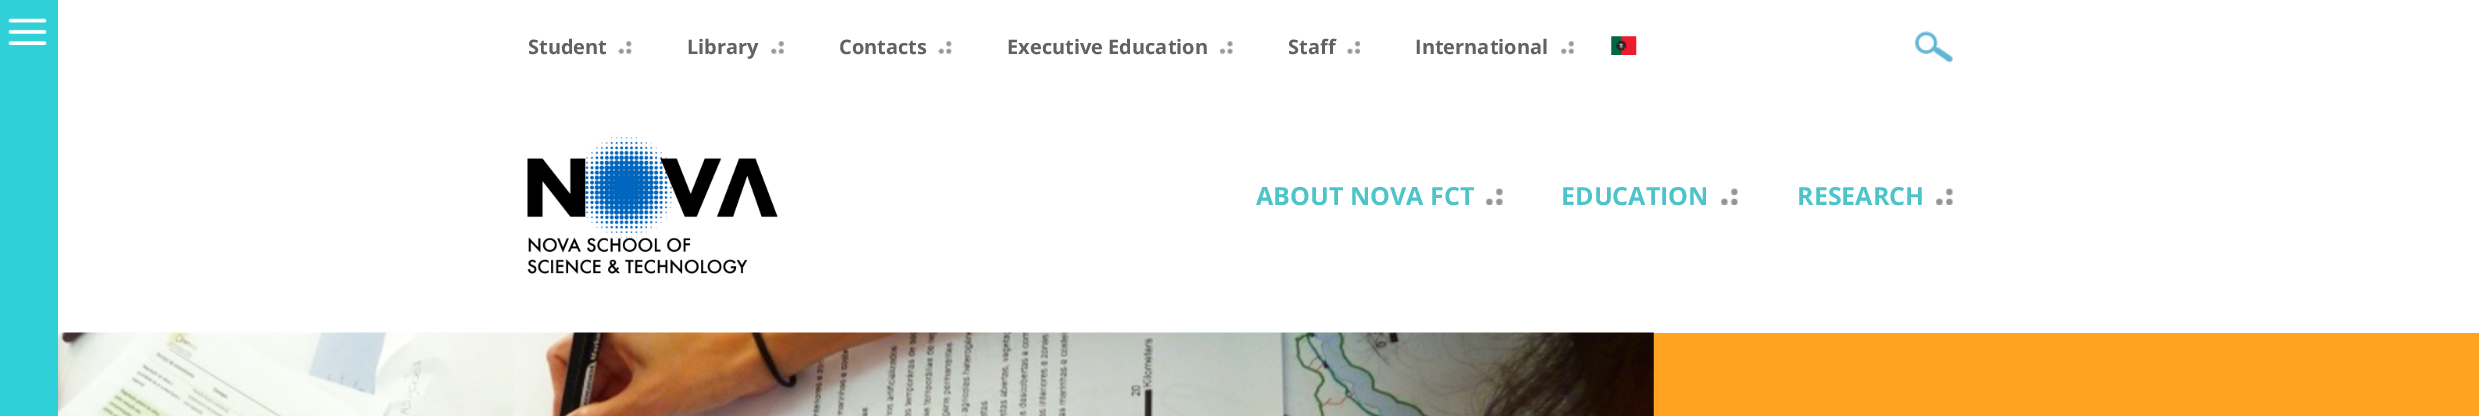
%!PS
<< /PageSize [2479 416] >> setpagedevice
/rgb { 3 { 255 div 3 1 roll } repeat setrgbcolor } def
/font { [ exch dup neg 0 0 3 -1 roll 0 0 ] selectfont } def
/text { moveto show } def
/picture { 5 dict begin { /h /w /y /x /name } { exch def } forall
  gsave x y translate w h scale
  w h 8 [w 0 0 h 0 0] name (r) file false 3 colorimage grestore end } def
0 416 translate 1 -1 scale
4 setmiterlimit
255 255 255 rgb
0 0 2479 416 rectfill
48 208 216 rgb
0 0 58 416 rectfill
(img_01.rgb) 8 18 39 27 picture
(img_02.rgb) 618 41 14 13 picture
(img_03.rgb) 771 41 13 13 picture
(img_04.rgb) 938 41 14 13 picture
(img_05.rgb) 1220 41 13 13 picture
(img_06.rgb) 1347 41 13 13 picture
(img_03.rgb) 1561 41 13 13 picture
(img_07.rgb) 1611 36 26 19 picture
(img_08.rgb) 1915 31 38 32 picture
(img_09.rgb) 527 137 251 137 picture
(img_10.rgb) 1486 188 17 17 picture
(img_10.rgb) 1721 188 17 17 picture
(img_10.rgb) 1936 188 17 17 picture
255 163 32 rgb
1653 333 826 83 rectfill
(img_11.rgb) 58 332 1596 84 picture
/OpenSans-Bold 20 font
97 97 97 rgb
(Student) 528 54 text
(Library) 687 54 text
(Contacts) 839 54 text
(Executive Education) 1007 54 text
(Staff) 1288 54 text
(International) 1415 54 text
/OpenSans-Bold 25 font
76 196 202 rgb
(ABOUT NOVA FCT) 1256 205 text
(EDUCATION) 1561 205 text
(RESEARCH) 1797 205 text
showpage
